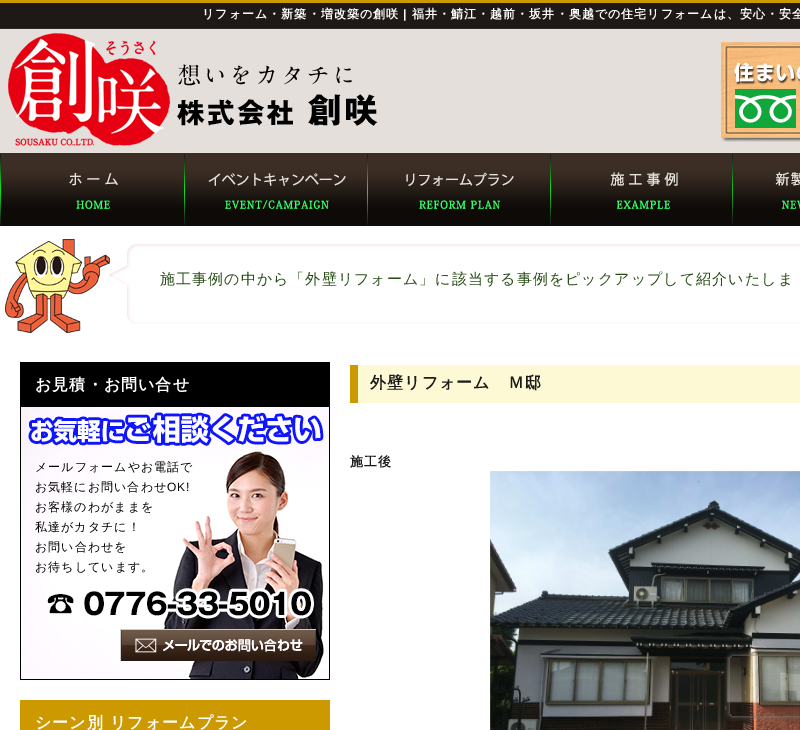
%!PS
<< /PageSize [800 730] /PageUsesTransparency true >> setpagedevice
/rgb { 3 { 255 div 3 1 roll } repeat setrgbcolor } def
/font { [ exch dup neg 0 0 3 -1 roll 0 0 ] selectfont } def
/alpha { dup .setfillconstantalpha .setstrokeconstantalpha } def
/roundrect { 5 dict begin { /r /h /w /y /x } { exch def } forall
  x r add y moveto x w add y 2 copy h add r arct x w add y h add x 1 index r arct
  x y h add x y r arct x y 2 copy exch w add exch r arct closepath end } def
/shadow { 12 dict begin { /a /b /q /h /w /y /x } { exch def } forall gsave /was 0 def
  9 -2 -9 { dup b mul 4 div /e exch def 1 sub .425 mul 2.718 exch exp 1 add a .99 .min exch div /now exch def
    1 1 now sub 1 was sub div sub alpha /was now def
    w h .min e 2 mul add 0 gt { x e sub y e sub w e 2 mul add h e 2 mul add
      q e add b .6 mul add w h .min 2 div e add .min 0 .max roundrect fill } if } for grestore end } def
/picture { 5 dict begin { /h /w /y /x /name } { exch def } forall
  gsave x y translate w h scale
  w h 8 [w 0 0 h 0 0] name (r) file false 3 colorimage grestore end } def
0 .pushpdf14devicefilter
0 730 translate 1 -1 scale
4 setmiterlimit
255 255 255 rgb
0 0 800 730 rectfill
(img_01.rgb) 0 146 800 7 picture
(img_02.rgb) 0 0 800 146 picture
(img_03.rgb) 177 64 201 62 picture
(img_04.rgb) 721 42 79 100 picture
(img_05.rgb) 0 153 800 73 picture
(img_06.rgb) 0 154 800 71 picture
(img_07.rgb) 5 239 795 94 picture
(img_08.rgb) 20 362 310 318 picture
(img_09.rgb) 47 588 267 31 picture
(img_10.rgb) 120 629 196 32 picture
204 153 0 rgb
20 700 310 30 rectfill
(img_11.rgb) 350 365 450 38 picture
(img_12.rgb) 490 471 310 259 picture
gsave
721 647 moveto 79 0 rlineto 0 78 rlineto -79 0 rlineto closepath 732 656 moveto 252 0 rlineto 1 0 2 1 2 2 rcurveto 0 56 rlineto 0 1 -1 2 -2 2 rcurveto -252 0 rlineto -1 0 -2 -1 -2 -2 rcurveto 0 -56 rlineto 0 -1 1 -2 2 -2 rcurveto closepath eoclip newpath
128 128 128 rgb
730 656 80 60 2 2.5 1 shadow
grestore
/WenQuanYiZenHei-Bold 12 font
255 255 255 rgb
202 18 moveto 1.05 0 (リフォーム・新築・増改築の創咲) ashow
/LiberationSans-Bold 12 font
403 18 moveto 1.05 0 (|) ashow
/WenQuanYiZenHei-Bold 12 font
412 18 moveto 1.05 0 (福井・鯖江・越前・坂井・奥越での住宅リフォームは、安心・安全) ashow
/WenQuanYiZenHei-Medium 15 font
37 77 20 rgb
160 284 moveto 1.05 0 (施工事例の中から「外壁リフォーム」に該当する事例をピックアップして紹介いたしま) ashow
/WenQuanYiZenHei-Bold 16 font
255 255 255 rgb
35 390 moveto 1.05 0 (お見積・お問い合せ) ashow
/WenQuanYiZenHei-Medium 12 font
0 0 0 rgb
35 471 moveto 1.05 0 (メールフォームやお電話で) ashow
35 491 moveto 1.05 0 (お気軽にお問い合わせ) ashow
/LiberationSans-Regular 12 font
167 491 moveto 1.05 0 (OK!) ashow
/WenQuanYiZenHei-Medium 12 font
35 511 moveto 1.05 0 (お客様のわがままを) ashow
35 531 moveto 1.05 0 (私達がカタチに！) ashow
35 551 moveto 1.05 0 (お問い合わせを) ashow
35 571 moveto 1.05 0 (お待ちしています。) ashow
/WenQuanYiZenHei-Bold 16 font
255 255 255 rgb
35 728 moveto 1.05 0 (シーン別 リフォームプラン) ashow
27 27 27 rgb
370 388 moveto 1.05 0 (外壁リフォーム　Ｍ邸) ashow
/WenQuanYiZenHei-Bold 13 font
350 466 moveto 1.05 0 (施工後) ashow
.poppdf14devicefilter showpage
